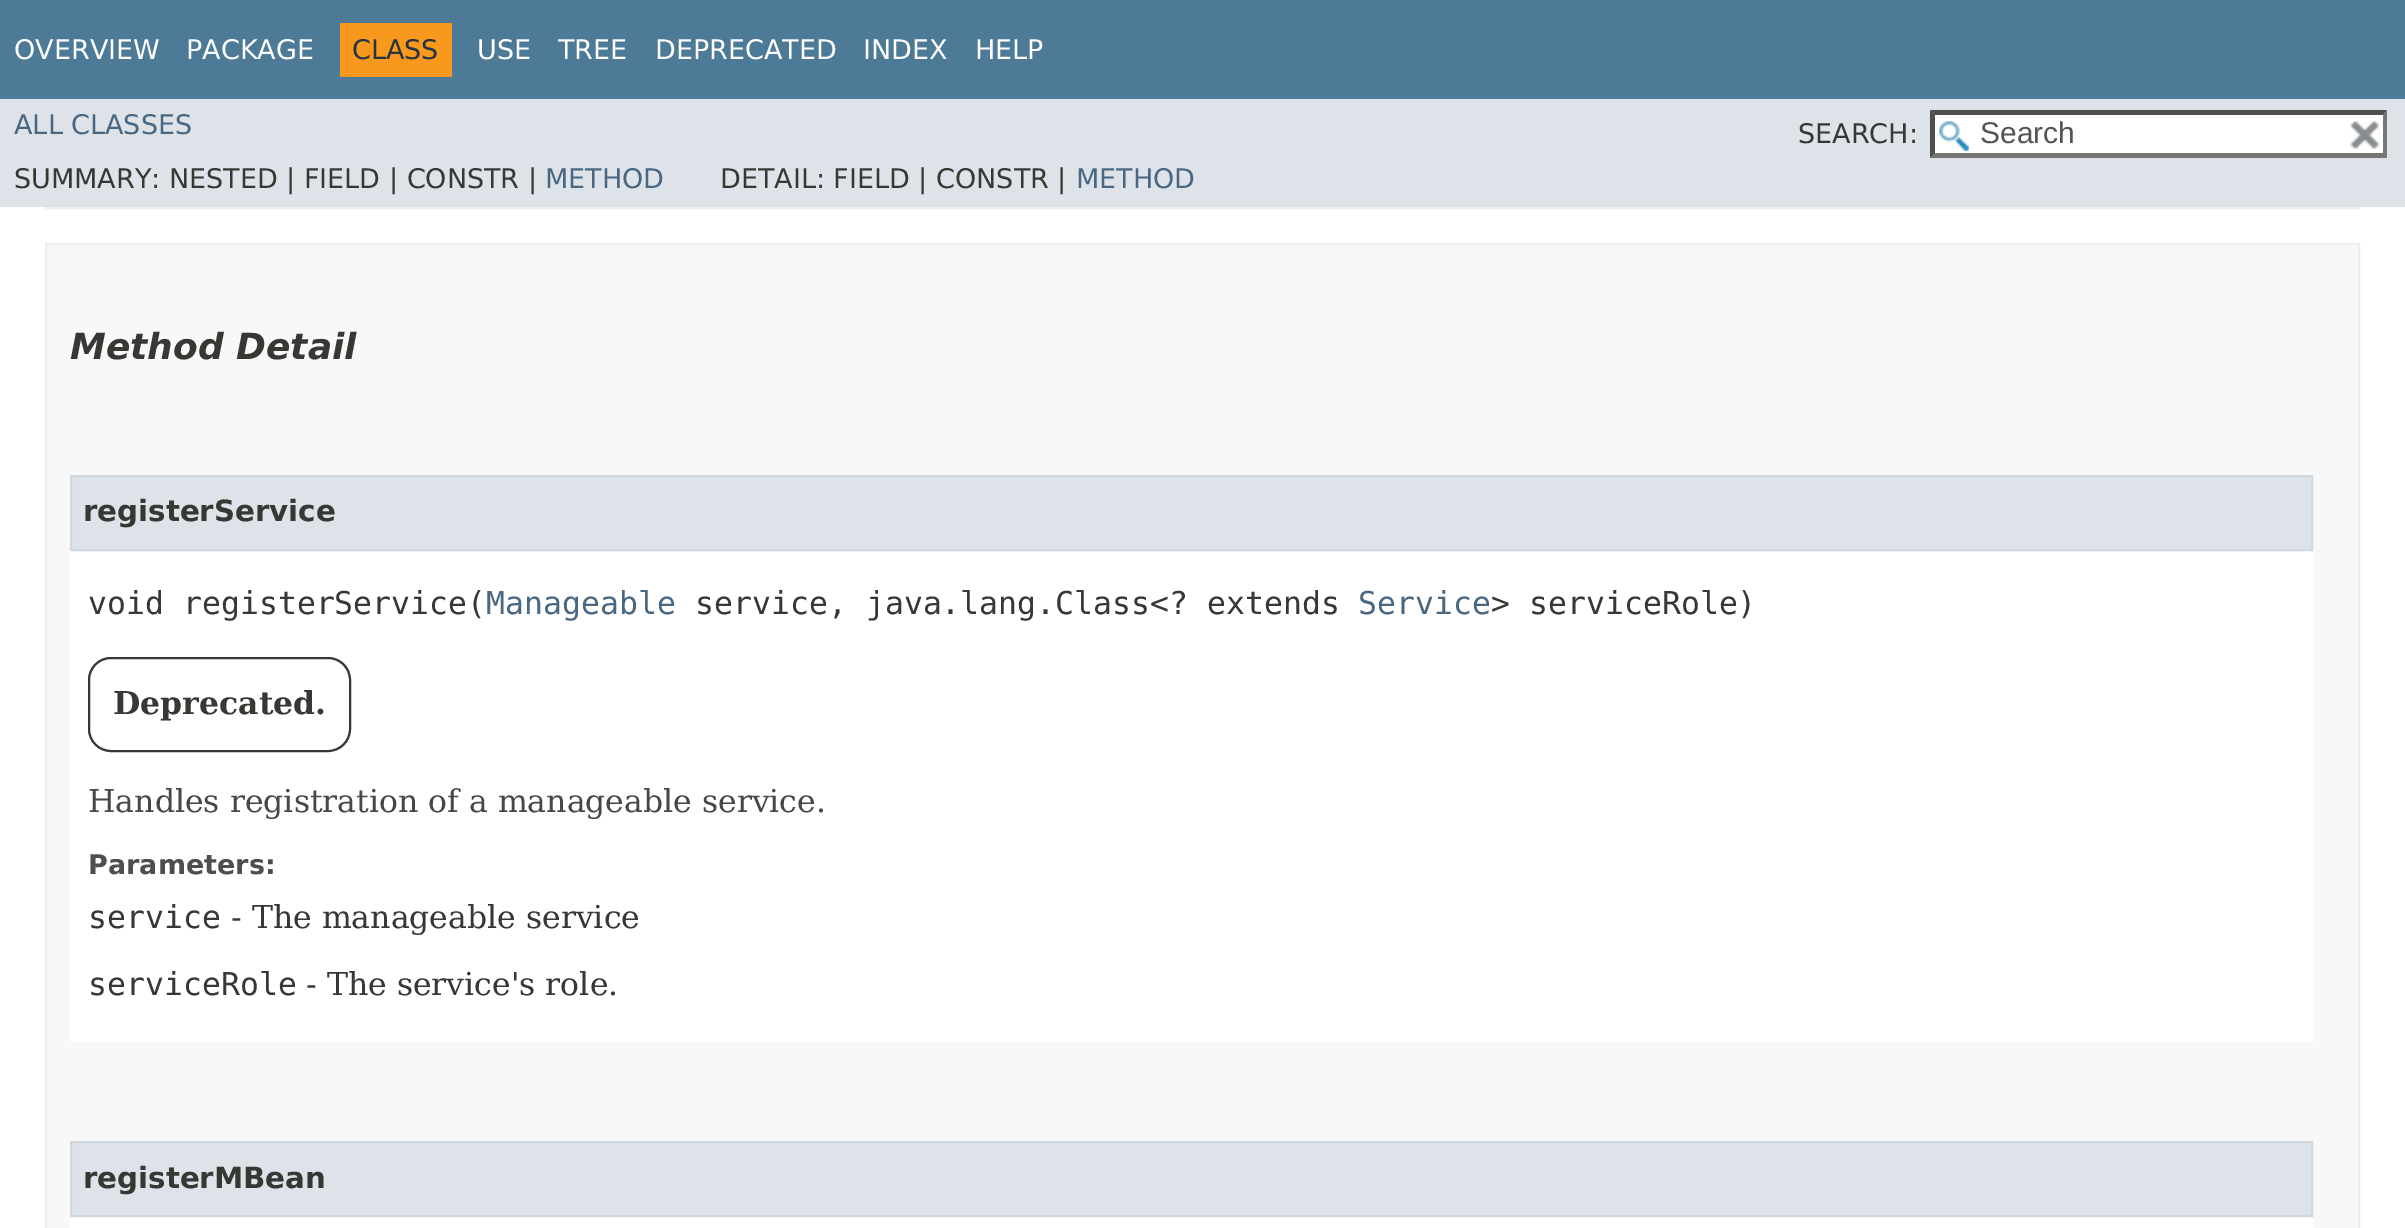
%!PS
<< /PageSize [2405 1228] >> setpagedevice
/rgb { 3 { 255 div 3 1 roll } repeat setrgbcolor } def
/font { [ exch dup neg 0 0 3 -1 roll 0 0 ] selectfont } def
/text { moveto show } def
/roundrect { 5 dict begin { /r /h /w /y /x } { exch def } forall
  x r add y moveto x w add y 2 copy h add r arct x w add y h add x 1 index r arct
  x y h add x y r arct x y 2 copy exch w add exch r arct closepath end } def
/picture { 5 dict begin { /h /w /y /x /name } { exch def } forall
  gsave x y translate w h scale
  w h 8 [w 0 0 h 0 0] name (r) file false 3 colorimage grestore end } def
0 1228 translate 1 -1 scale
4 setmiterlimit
255 255 255 rgb
0 0 2405 1228 rectfill
237 237 237 rgb
2 setlinewidth
46 -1 2313 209 rectstroke
77 122 151 rgb
0 0 2405 99 rectfill
248 152 29 rgb
340 23 112 54 rectfill
222 227 233 rgb
0 99 2405 108 rectfill
255 255 255 rgb
1931 110 456 48 rectfill
(img_01.rgb) 1939 121 30 30 picture
79 79 79 rgb
1930 110 moveto 457 0 rlineto -4 5 rlineto -448 0 rlineto closepath fill
118 118 118 rgb
2387 110 moveto 0 48 rlineto -4 -5 rlineto 0 -38 rlineto closepath fill
2387 158 moveto -457 0 rlineto 5 -5 rlineto 448 0 rlineto closepath fill
79 79 79 rgb
1930 158 moveto 0 -48 rlineto 5 5 rlineto 0 38 rlineto closepath fill
(img_02.rgb) 2349 121 31 28 picture
248 248 248 rgb
46 244 moveto 2313 0 rlineto 0 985 rlineto -2313 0 rlineto closepath gsave fill grestore
237 237 237 rgb
stroke
255 255 255 rgb
70 551 2243 491 rectfill
222 227 233 rgb
71 476 moveto 2241 0 rlineto 0 74 rlineto -2241 0 rlineto closepath gsave fill grestore
208 217 224 rgb
stroke
53 56 51 rgb
89 658 261 93 22 roundrect stroke
255 255 255 rgb
70 1217 2243 11 rectfill
222 227 233 rgb
71 1142 moveto 2241 0 rlineto 0 74 rlineto -2241 0 rlineto closepath gsave fill grestore
208 217 224 rgb
stroke
/DejaVuSans-Regular 27 font
255 255 255 rgb
(OVERVIEW) 14 59 text
(PACKAGE) 186 59 text
37 52 65 rgb
(CLASS) 352 59 text
255 255 255 rgb
(USE) 477 59 text
(TREE) 558 59 text
(DEPRECATED) 655 59 text
(INDEX) 863 59 text
(HELP) 975 59 text
74 103 130 rgb
(ALL CLASSES) 14 134 text
53 56 51 rgb
(SEARCH:) 1798 143 text
/LiberationSans-Regular 30 font
84 84 84 rgb
(Search) 1980 143 text
/DejaVuSans-Regular 27 font
53 56 51 rgb
(SUMMARY: NESTED | FIELD | CONSTR |) 14 188 text
74 103 130 rgb
(METHOD) 545 188 text
53 56 51 rgb
(DETAIL: FIELD | CONSTR |) 720 188 text
74 103 130 rgb
(METHOD) 1076 188 text
/DejaVuSans-BoldItalic 36 font
53 56 51 rgb
(Method Detail) 70 359 text
/DejaVuSans-Bold 29.25 font
(registerService) 83 521 text
/DejaVuSansMono-Regular 31.5 font
(void registerService\() 88 614 text
74 103 130 rgb
(Manageable) 486 614 text
53 56 51 rgb
(service, java.lang.Class<? extends) 695 614 text
74 103 130 rgb
(Service) 1358 614 text
53 56 51 rgb
(> serviceRole\)) 1491 614 text
/DejaVuSerif-Bold 31.5 font
(Deprecated.) 113 714 text
/DejaVuSerif-Regular 31.5 font
71 71 71 rgb
(Handles registration of a manageable service.) 88 812 text
/DejaVuSans-Bold 27 font
78 78 78 rgb
(Parameters:) 88 874 text
/DejaVuSansMono-Regular 31.5 font
53 56 51 rgb
(service) 88 928 text
/DejaVuSerif-Regular 31.5 font
(- The manageable service) 231 928 text
/DejaVuSansMono-Regular 31.5 font
(serviceRole) 88 995 text
/DejaVuSerif-Regular 31.5 font
(- The service's role.) 306 995 text
/DejaVuSans-Bold 29.25 font
(registerMBean) 83 1188 text
showpage
